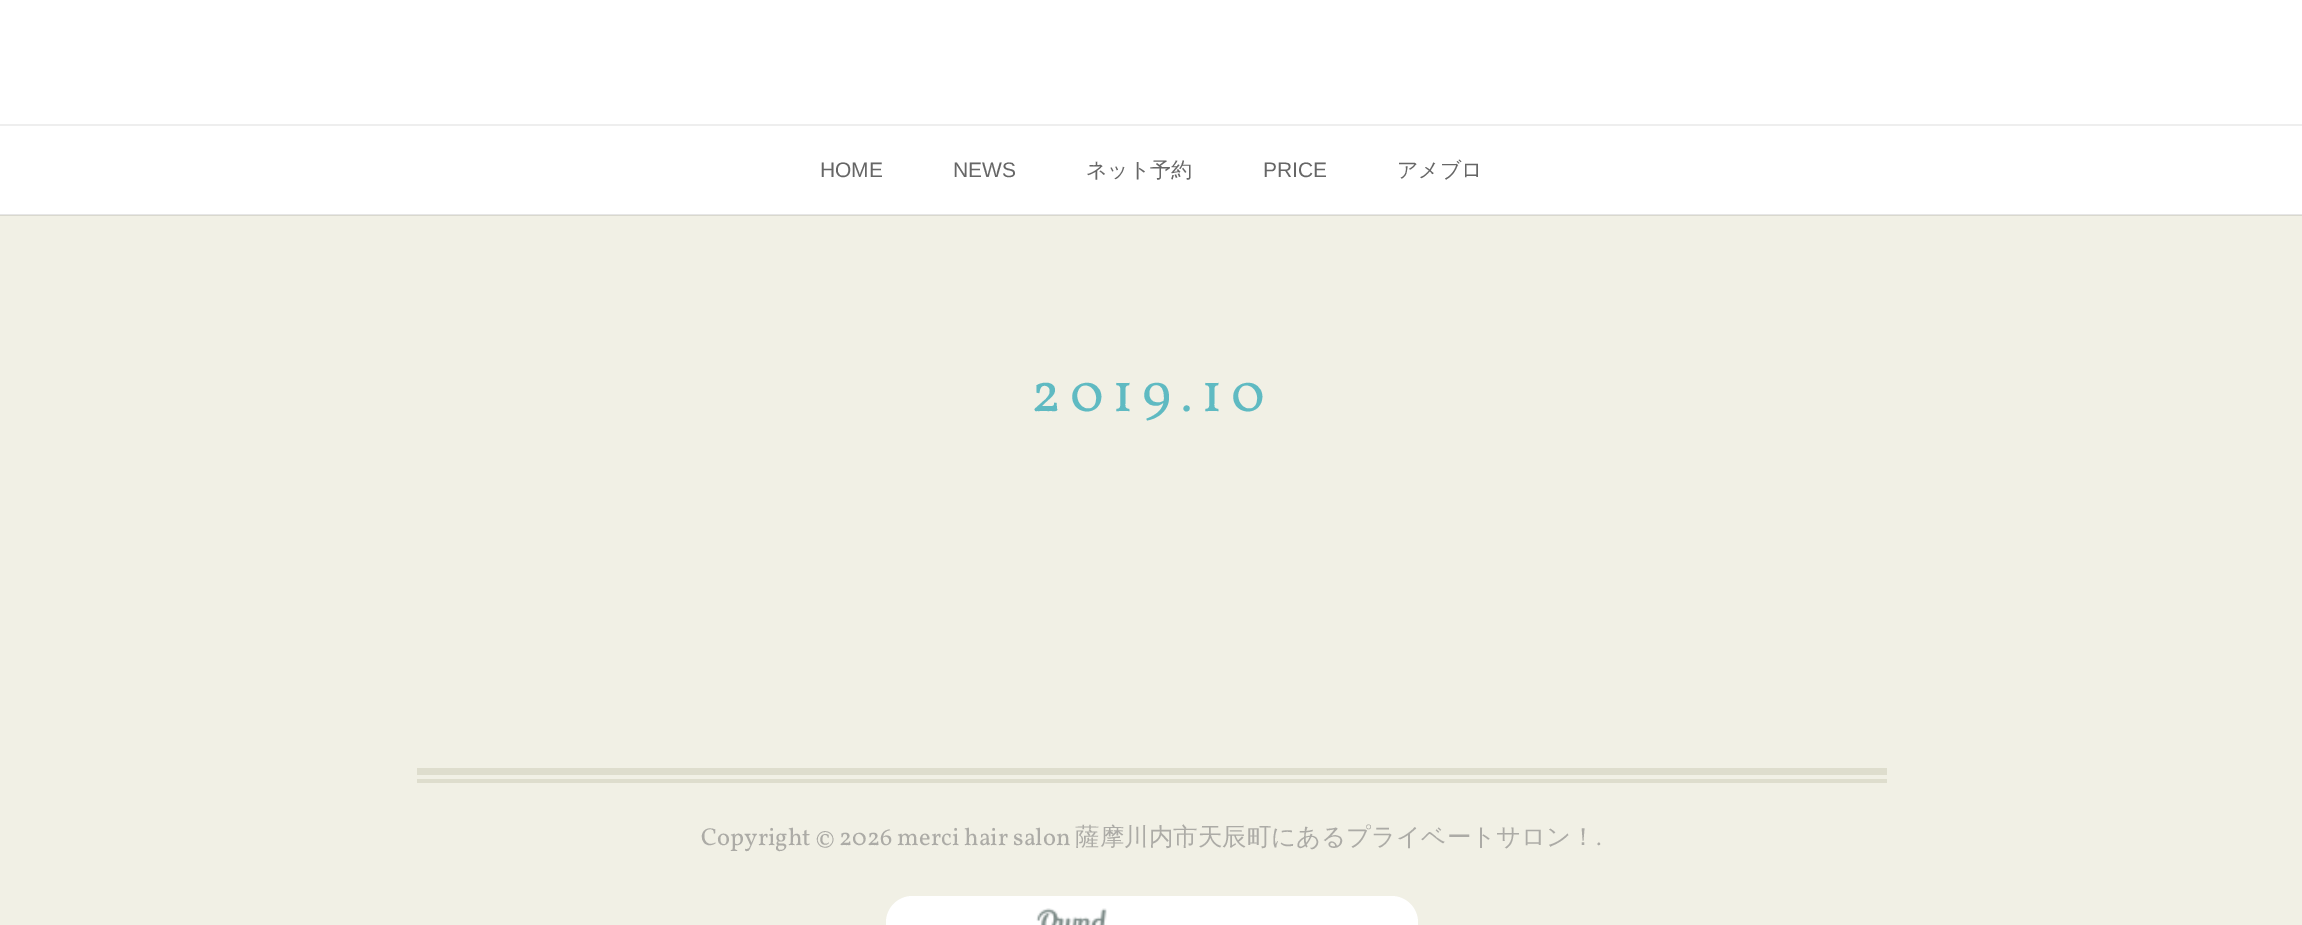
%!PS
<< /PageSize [2302 925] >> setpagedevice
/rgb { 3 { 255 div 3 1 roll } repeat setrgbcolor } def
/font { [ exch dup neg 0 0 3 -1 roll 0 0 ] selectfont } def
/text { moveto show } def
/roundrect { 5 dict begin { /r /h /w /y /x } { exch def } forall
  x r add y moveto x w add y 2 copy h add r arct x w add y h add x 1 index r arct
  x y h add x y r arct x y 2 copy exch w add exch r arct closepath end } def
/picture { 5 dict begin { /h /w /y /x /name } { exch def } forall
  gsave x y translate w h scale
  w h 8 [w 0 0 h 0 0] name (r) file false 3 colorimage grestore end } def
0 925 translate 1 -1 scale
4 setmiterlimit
241 240 229 rgb
0 0 2302 925 rectfill
217 216 206 rgb
0 215 2302 1 rectfill
255 255 255 rgb
0 0 2302 124 rectfill
238 238 238 rgb
0 124 2302 2 rectfill
255 255 255 rgb
0 126 2302 88 rectfill
230 230 230 rgb
0 214 2302 1 rectfill
222 221 205 rgb
417 768 1470 7 rectfill
417 779 1470 4 rectfill
255 255 255 rgb
886 896 532 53 26.5 roundrect fill
(img_01.rgb) 1036 908 71 17 picture
/LiberationSans-Regular 21 font
102 102 102 rgb
(HOME) 820 177 text
(NEWS) 953 177 text
/WenQuanYiZenHei-Medium 21 font
(ネット予約) 1086 177 text
/LiberationSans-Regular 21 font
(PRICE) 1263 177 text
/WenQuanYiZenHei-Medium 21 font
(アメブロ) 1397 177 text
/Vollkorn-Regular 56 font
95 186 194 rgb
1031 411 moveto 8.5 0 (2019.10) ashow
/Vollkorn-Regular 24.5 font
172 171 166 rgb
(Copyright © 2026 merci hair salon) 701 845 text
/WenQuanYiZenHei-Medium 24.5 font
(薩摩川内市天辰町にあるプライベートサロン！) 1075 845 text
/Vollkorn-Regular 24.5 font
(.) 1596 845 text
showpage
